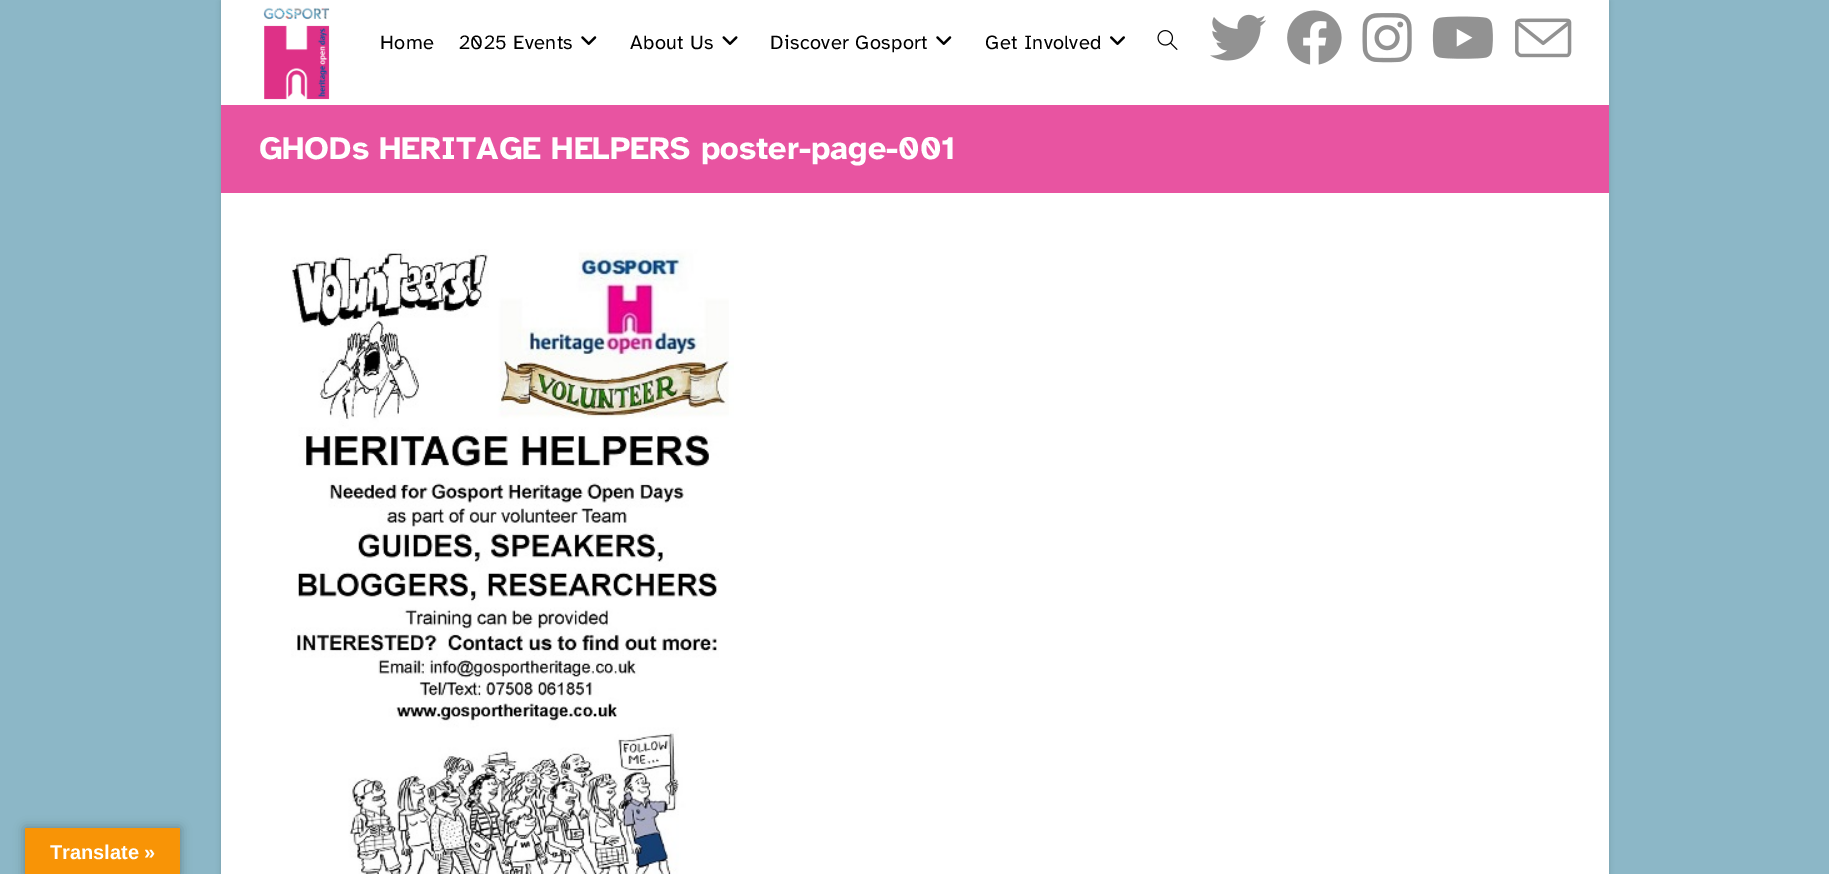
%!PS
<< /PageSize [1829 874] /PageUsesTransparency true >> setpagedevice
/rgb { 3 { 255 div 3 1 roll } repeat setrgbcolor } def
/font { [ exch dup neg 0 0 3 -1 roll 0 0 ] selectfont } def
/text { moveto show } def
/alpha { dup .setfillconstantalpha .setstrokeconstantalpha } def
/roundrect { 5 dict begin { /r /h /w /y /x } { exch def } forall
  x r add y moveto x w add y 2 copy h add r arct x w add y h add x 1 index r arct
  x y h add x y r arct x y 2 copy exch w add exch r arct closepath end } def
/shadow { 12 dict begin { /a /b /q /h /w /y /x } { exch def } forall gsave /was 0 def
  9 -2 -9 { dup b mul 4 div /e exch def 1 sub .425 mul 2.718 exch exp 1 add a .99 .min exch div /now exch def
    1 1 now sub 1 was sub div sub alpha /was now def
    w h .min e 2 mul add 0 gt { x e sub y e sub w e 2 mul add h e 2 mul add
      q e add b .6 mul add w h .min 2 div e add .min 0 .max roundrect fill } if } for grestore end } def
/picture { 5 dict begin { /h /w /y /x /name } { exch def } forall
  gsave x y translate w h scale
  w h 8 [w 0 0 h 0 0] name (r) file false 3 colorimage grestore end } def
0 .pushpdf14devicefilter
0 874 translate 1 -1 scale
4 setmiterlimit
140 183 199 rgb
0 0 1829 874 rectfill
0 0 0 rgb
221 1 1388 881 0 2.5 0.15 shadow
255 255 255 rgb
221 0 1388 874 rectfill
(img_01.rgb) 263 7 67 93 picture
(img_02.rgb) 581 36 16 9 picture
(img_03.rgb) 722 36 16 9 picture
(img_02.rgb) 936 36 16 9 picture
(img_04.rgb) 1110 36 15 9 picture
(img_05.rgb) 1157 30 21 20 picture
(img_06.rgb) 1210 14 56 47 picture
(img_07.rgb) 1287 10 55 55 picture
(img_08.rgb) 1362 13 50 50 picture
(img_09.rgb) 1432 16 61 43 picture
(img_10.rgb) 1515 18 57 40 picture
232 84 161 rgb
221 105 1388 88 rectfill
(img_11.rgb) 291 249 443 625 picture
0 0 0 rgb
25 828 155 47 0 5.5 0.3 shadow
248 148 6 rgb
25 828 155 46 rectfill
/AtkinsonHyperlegible-Regular 20 font
0 0 0 rgb
380 49 moveto 0.4 0 (Home) ashow
459 49 moveto 0.4 0 (2025 Events) ashow
630 49 moveto 0.4 0 (About Us) ashow
770 49 moveto 0.4 0 (Discover Gosport) ashow
985 49 moveto 0.4 0 (Get Involved) ashow
/AtkinsonHyperlegible-Bold 32.5 font
255 255 255 rgb
(GHODs HERITAGE HELPERS poster-page-001) 259 159 text
/LiberationSans-Bold 20 font
(Translate ») 50 859 text
.poppdf14devicefilter showpage
